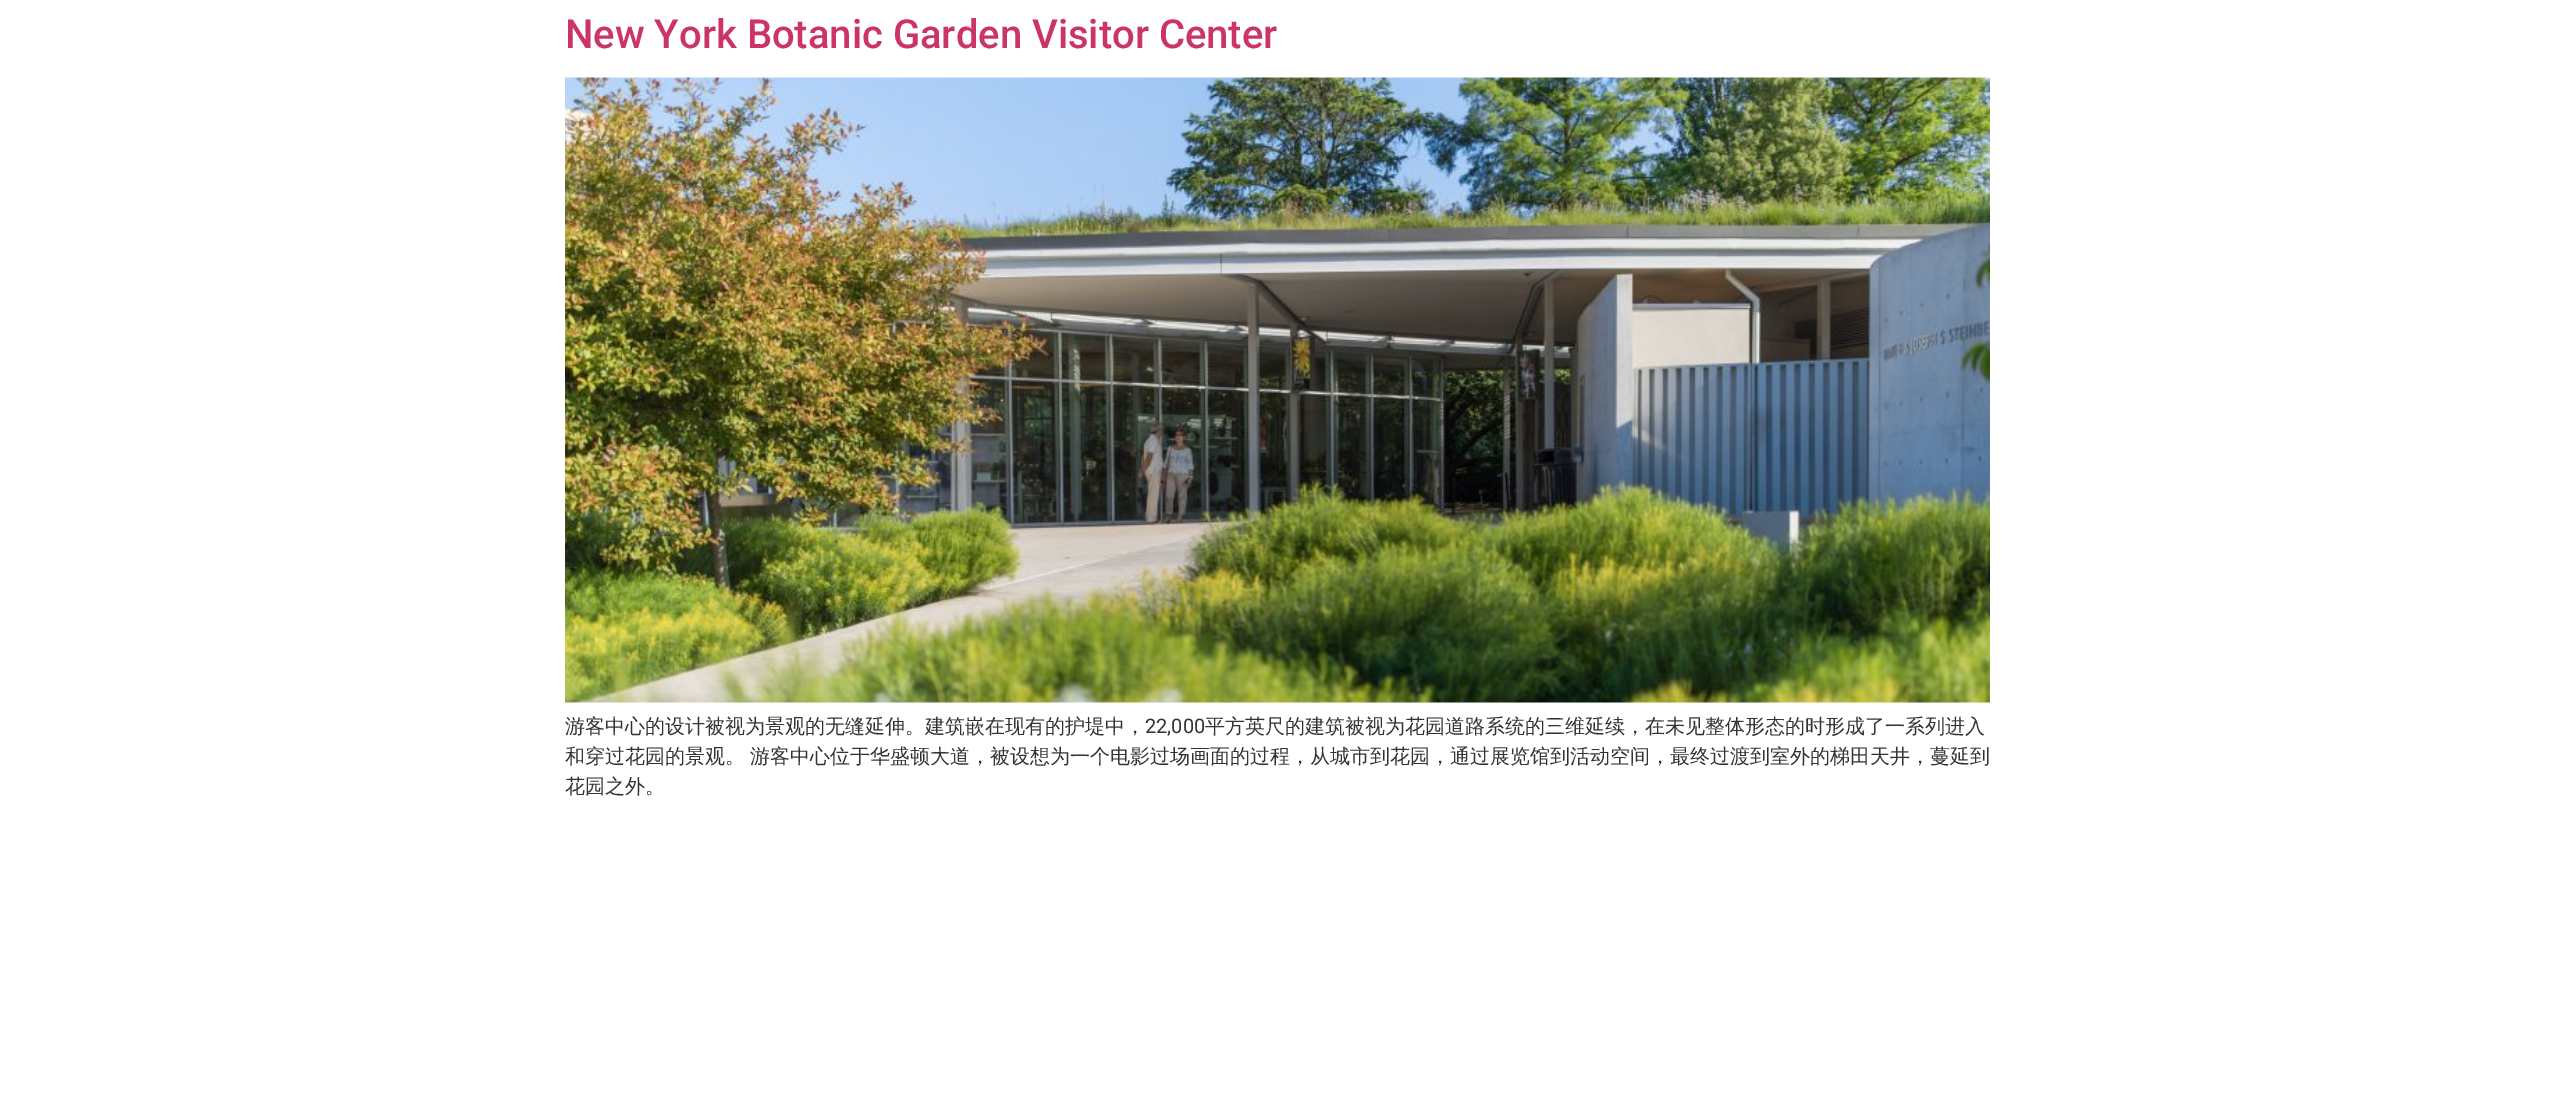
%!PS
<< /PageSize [2555 1111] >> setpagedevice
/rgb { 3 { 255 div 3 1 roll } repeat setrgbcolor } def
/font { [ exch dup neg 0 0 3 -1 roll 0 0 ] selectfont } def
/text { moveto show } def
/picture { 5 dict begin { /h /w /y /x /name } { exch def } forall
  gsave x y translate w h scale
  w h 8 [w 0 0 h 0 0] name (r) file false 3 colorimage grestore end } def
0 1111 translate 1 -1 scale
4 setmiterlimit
255 255 255 rgb
0 0 2555 1111 rectfill
(img_01.rgb) 565 77 1425 626 picture
/Roboto-Medium 40 font
204 51 102 rgb
(New York Botanic Garden Visitor Center) 565 48 text
/WenQuanYiZenHei-Medium 20 font
51 51 51 rgb
(游客中心的设计被视为景观的无缝延伸。建筑嵌在现有的护堤中，) 565 733 text
/Roboto-Regular 20 font
(22,000) 1145 733 text
/WenQuanYiZenHei-Medium 20 font
(平方英尺的建筑被视为花园道路系统的三维延续，在未见整体形态的时形成了一系列进入) 1205 733 text
565 763 moveto -1 0 32 (和穿过花园的景观。 游客中心位于华盛顿大道，被设想为一个电影过场画面的过程，从城市到花园，通过展览馆到活动空间，最终过渡到室外的梯田天井，蔓延到) widthshow
(花园之外。) 565 793 text
showpage
